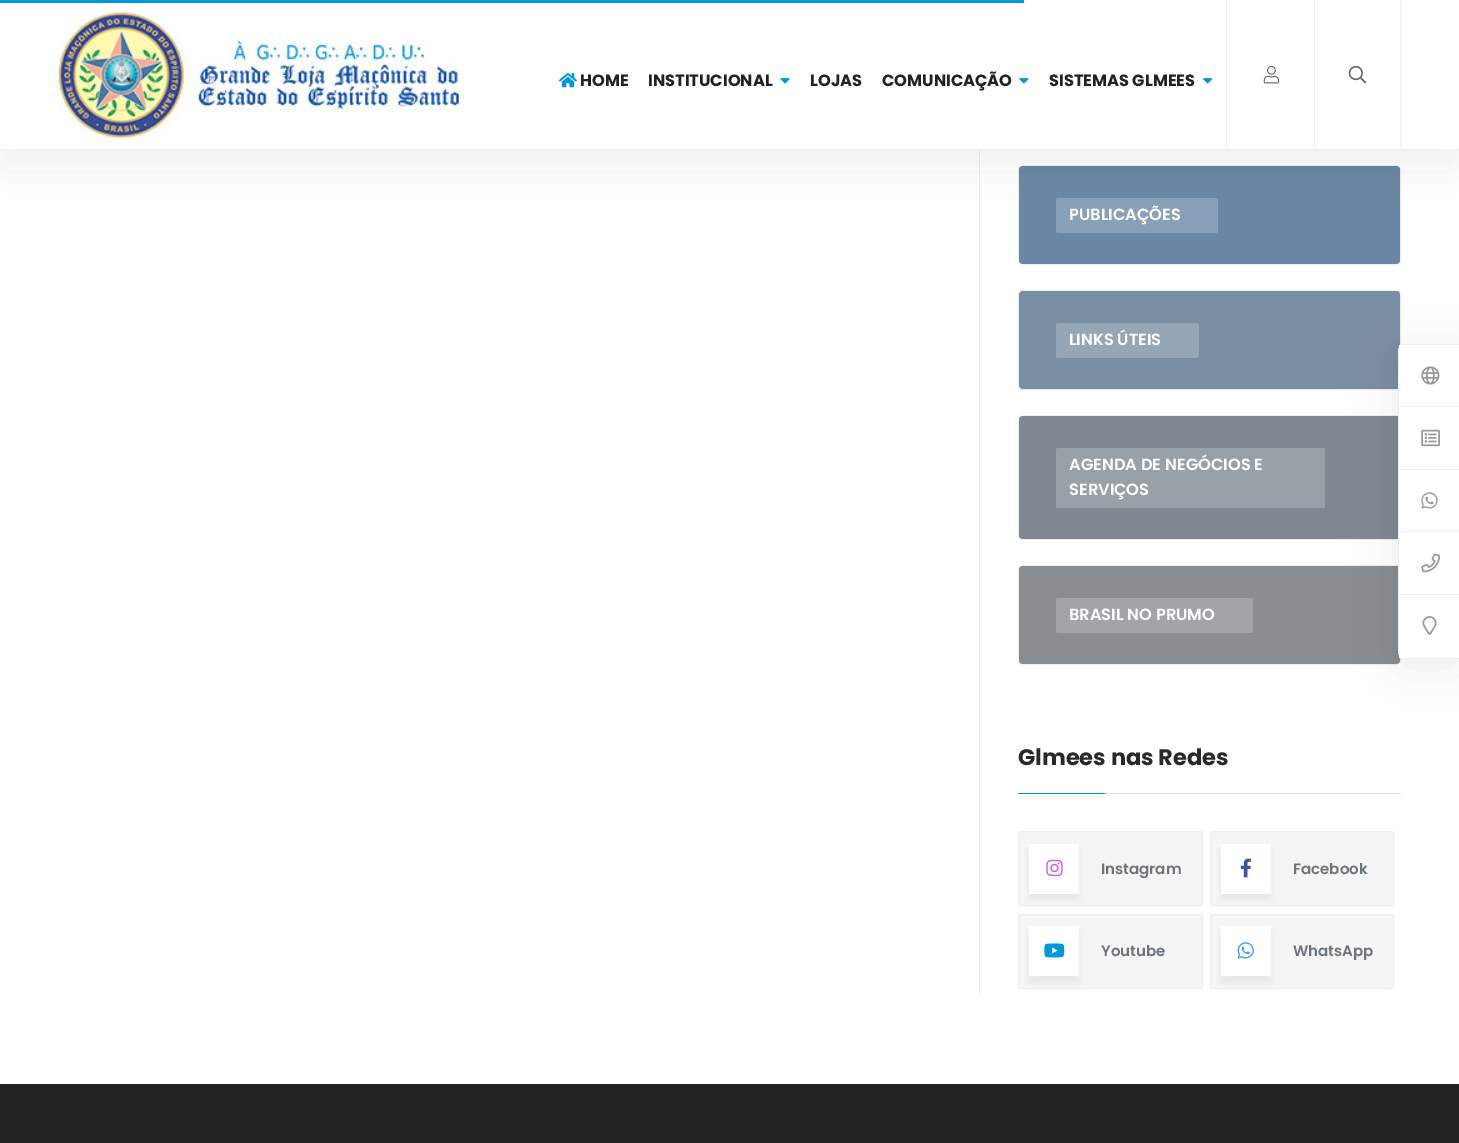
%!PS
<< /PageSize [1459 1143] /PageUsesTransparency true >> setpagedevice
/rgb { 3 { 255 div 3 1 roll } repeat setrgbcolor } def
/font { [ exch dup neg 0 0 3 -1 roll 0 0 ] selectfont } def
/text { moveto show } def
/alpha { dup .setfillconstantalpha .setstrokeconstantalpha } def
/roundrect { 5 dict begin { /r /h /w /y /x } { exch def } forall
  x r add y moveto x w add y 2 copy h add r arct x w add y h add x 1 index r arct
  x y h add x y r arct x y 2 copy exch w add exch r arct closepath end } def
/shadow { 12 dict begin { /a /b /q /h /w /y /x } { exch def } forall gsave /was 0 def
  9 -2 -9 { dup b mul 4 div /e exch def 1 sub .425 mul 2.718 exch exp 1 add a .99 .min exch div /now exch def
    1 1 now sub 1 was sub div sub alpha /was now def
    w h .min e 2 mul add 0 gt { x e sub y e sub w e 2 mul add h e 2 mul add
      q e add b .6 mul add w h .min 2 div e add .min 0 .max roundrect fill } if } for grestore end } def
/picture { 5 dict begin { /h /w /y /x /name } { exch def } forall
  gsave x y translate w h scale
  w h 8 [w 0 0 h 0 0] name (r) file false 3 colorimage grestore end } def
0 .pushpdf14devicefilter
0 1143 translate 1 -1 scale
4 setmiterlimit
255 255 255 rgb
0 0 1459 1143 rectfill
238 238 238 rgb
979 150 1 846 rectfill
1018.5 165.5 382 99 4.5 roundrect stroke
152 195 237 rgb
1019 166 381 98 4 roundrect fill
0.3 alpha
0 0 0 rgb
1019 166 381 98 4 roundrect fill
1 alpha
136 160 184 rgb
1056 198 162 35 2.5 roundrect fill
0 0 0 rgb
0 19 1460 150 0 19 0.06 shadow
255 255 255 rgb
0 1 1459 148 rectfill
0 152 219 rgb
0 0 1024 3 rectfill
238 238 238 rgb
0 149 1459 1 rectfill
(img_01.rgb) 58 12 401 126 picture
(img_02.rgb) 558 73 19 15 picture
(img_03.rgb) 780 78 10 6 picture
(img_04.rgb) 1019 78 10 6 picture
(img_05.rgb) 1202 78 11 6 picture
1226 0 1 150 rectfill
(img_06.rgb) 1263 65 17 19 picture
1400 0 1 150 rectfill
1314 0 1 150 rectfill
(img_07.rgb) 1348 65 19 19 picture
1018.5 290.5 382 99 4.5 roundrect stroke
175 205 234 rgb
1019 291 381 98 4 roundrect fill
0.3 alpha
0 0 0 rgb
1019 291 381 98 4 roundrect fill
1 alpha
149 166 182 rgb
1056 323 143 35 2.5 roundrect fill
238 238 238 rgb
1018.5 415.5 382 124 4.5 roundrect stroke
183 196 209 rgb
1019 416 381 123 4 roundrect fill
0.3 alpha
0 0 0 rgb
1019 416 381 123 4 roundrect fill
1 alpha
153 161 168 rgb
1056 448 269 60 2.5 roundrect fill
238 238 238 rgb
1018.5 565.5 382 99 4.5 roundrect stroke
197 203 209 rgb
1019 566 381 98 4 roundrect fill
0.3 alpha
0 0 0 rgb
1019 566 381 98 4 roundrect fill
1 alpha
161 165 168 rgb
1056 598 197 35 2.5 roundrect fill
221 221 221 rgb
1105 793 296 1 rectfill
0 152 219 rgb
1018 793 87 1 rectfill
245 245 245 rgb
1018.5 831.5 184 74 2 roundrect gsave fill grestore
238 238 238 rgb
stroke
0 0 0 rgb
1029 850 50 50 0 3 0.06 shadow
255 255 255 rgb
1029 844 50 50 rectfill
(img_08.rgb) 1046 859 17 18 picture
245 245 245 rgb
1210.5 831.5 183 74 2 roundrect gsave fill grestore
238 238 238 rgb
stroke
0 0 0 rgb
1221 850 50 50 0 3 0.06 shadow
255 255 255 rgb
1221 844 50 50 rectfill
(img_09.rgb) 1240 858 11 20 picture
245 245 245 rgb
1018.5 914.5 184 74 2 roundrect gsave fill grestore
238 238 238 rgb
stroke
0 0 0 rgb
1029 933 50 50 0 3 0.06 shadow
255 255 255 rgb
1029 926 50 50 rectfill
(img_10.rgb) 1044 943 21 15 picture
245 245 245 rgb
1210.5 914.5 183 74 2 roundrect gsave fill grestore
238 238 238 rgb
stroke
0 0 0 rgb
1221 933 50 50 0 3 0.06 shadow
255 255 255 rgb
1221 926 50 50 rectfill
(img_11.rgb) 1237 942 17 17 picture
0 0 0 rgb
1398 350 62 315 8 25 0.07 shadow
255 255 255 rgb
1406 344 moveto 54 0 rlineto 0 315 rlineto -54 0 rlineto -4.5 0 -8 -3.5 -8 -8 rcurveto 0 -299 rlineto 0 -4.5 3.5 -8 8 -8 rcurveto closepath fill
238 238 238 rgb
1405 344 moveto 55 0 rlineto 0 315 rlineto -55 0 rlineto -4 0 -7 -4 -7 -8 rcurveto 0 -300 rlineto 0 -4 3 -7 7 -7 rcurveto closepath 1405 345 moveto 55 0 rlineto 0 313 rlineto -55 0 rlineto -3 0 -6 -3 -6 -7 rcurveto 0 -300 rlineto 0 -3 3 -6 6 -6 rcurveto closepath eofill
255 255 255 rgb
1399 345 5 5 rectfill
238 238 238 rgb
1399 406 60 1 rectfill
(img_12.rgb) 1421 366 19 19 picture
1399 469 60 1 rectfill
(img_13.rgb) 1421 429 19 18 picture
1399 531 60 1 rectfill
(img_14.rgb) 1421 492 17 17 picture
1399 594 60 1 rectfill
(img_15.rgb) 1421 553 19 20 picture
255 255 255 rgb
1407 595 moveto 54 0 rlineto 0 63 rlineto -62 0 rlineto 0 -55 rlineto 0 -4.5 3.5 -8 8 -8 rcurveto closepath fill
(img_16.rgb) 1422 616 15 19 picture
34 34 34 rgb
0 1084 1459 59 rectfill
/Poppins-Bold 16.25 font
(HOME) 580 86 text
(INSTITUCIONAL) 648 86 text
(LOJAS) 810 86 text
(COMUNICAÇÃO) 882 86 text
(SISTEMAS GLMEES) 1049 86 text
/Poppins-SemiBold 16.25 font
255 255 255 rgb
(PUBLICAÇÕES) 1069 220 text
(LINKS ÚTEIS) 1069 345 text
(AGENDA DE NEGÓCIOS E) 1069 470 text
(SERVIÇOS) 1069 495 text
(BRASIL NO PRUMO) 1069 620 text
/Poppins-Bold 22.5 font
41 41 41 rgb
(Glmees nas Redes) 1018 765 text
/Poppins-SemiBold 15 font
108 117 125 rgb
(Instagram) 1101 874 text
(Facebook) 1293 874 text
(Youtube) 1101 956 text
(WhatsApp) 1293 956 text
.poppdf14devicefilter showpage
